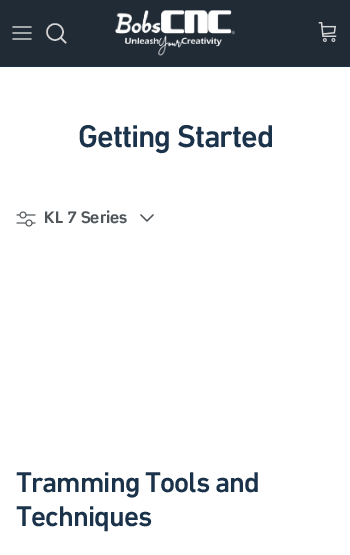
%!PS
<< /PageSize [350 555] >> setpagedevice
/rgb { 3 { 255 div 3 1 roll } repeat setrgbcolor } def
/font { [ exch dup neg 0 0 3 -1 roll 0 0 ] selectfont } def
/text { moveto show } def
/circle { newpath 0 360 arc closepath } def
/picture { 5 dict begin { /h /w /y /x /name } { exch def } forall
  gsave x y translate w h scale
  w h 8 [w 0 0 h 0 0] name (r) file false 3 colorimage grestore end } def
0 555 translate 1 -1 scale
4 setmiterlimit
255 255 255 rgb
0 0 350 555 rectfill
33 43 54 rgb
0 0 350 66 rectfill
26 50 74 rgb
0 66 350 1 rectfill
(img_01.rgb) 12 26 20 14 picture
212 212 212 rgb
1.5 setlinewidth
55 32 8 circle stroke
2 setlinecap
61 38 moveto 4.5 4.5 rlineto stroke
(img_02.rgb) 115 10 120 46 picture
(img_03.rgb) 318 22 19 20 picture
(img_04.rgb) 16 211 20 16 picture
80 85 89 rgb
1.3 setlinewidth
1 setlinecap
1 setlinejoin
141 215 moveto 6 6 rlineto 6 -6 rlineto stroke
/DINNext-Medium 32 font
26 50 74 rgb
78 147 moveto -1.1 0 (Getting Started) ashow
/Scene-Bold 16 font
80 85 89 rgb
(KL 7 Series) 44 223 text
/DINNext-Medium 29 font
26 50 74 rgb
16 492 moveto -1 0 (Tramming Tools and) ashow
16 526 moveto -1 0 (Techniques) ashow
showpage
